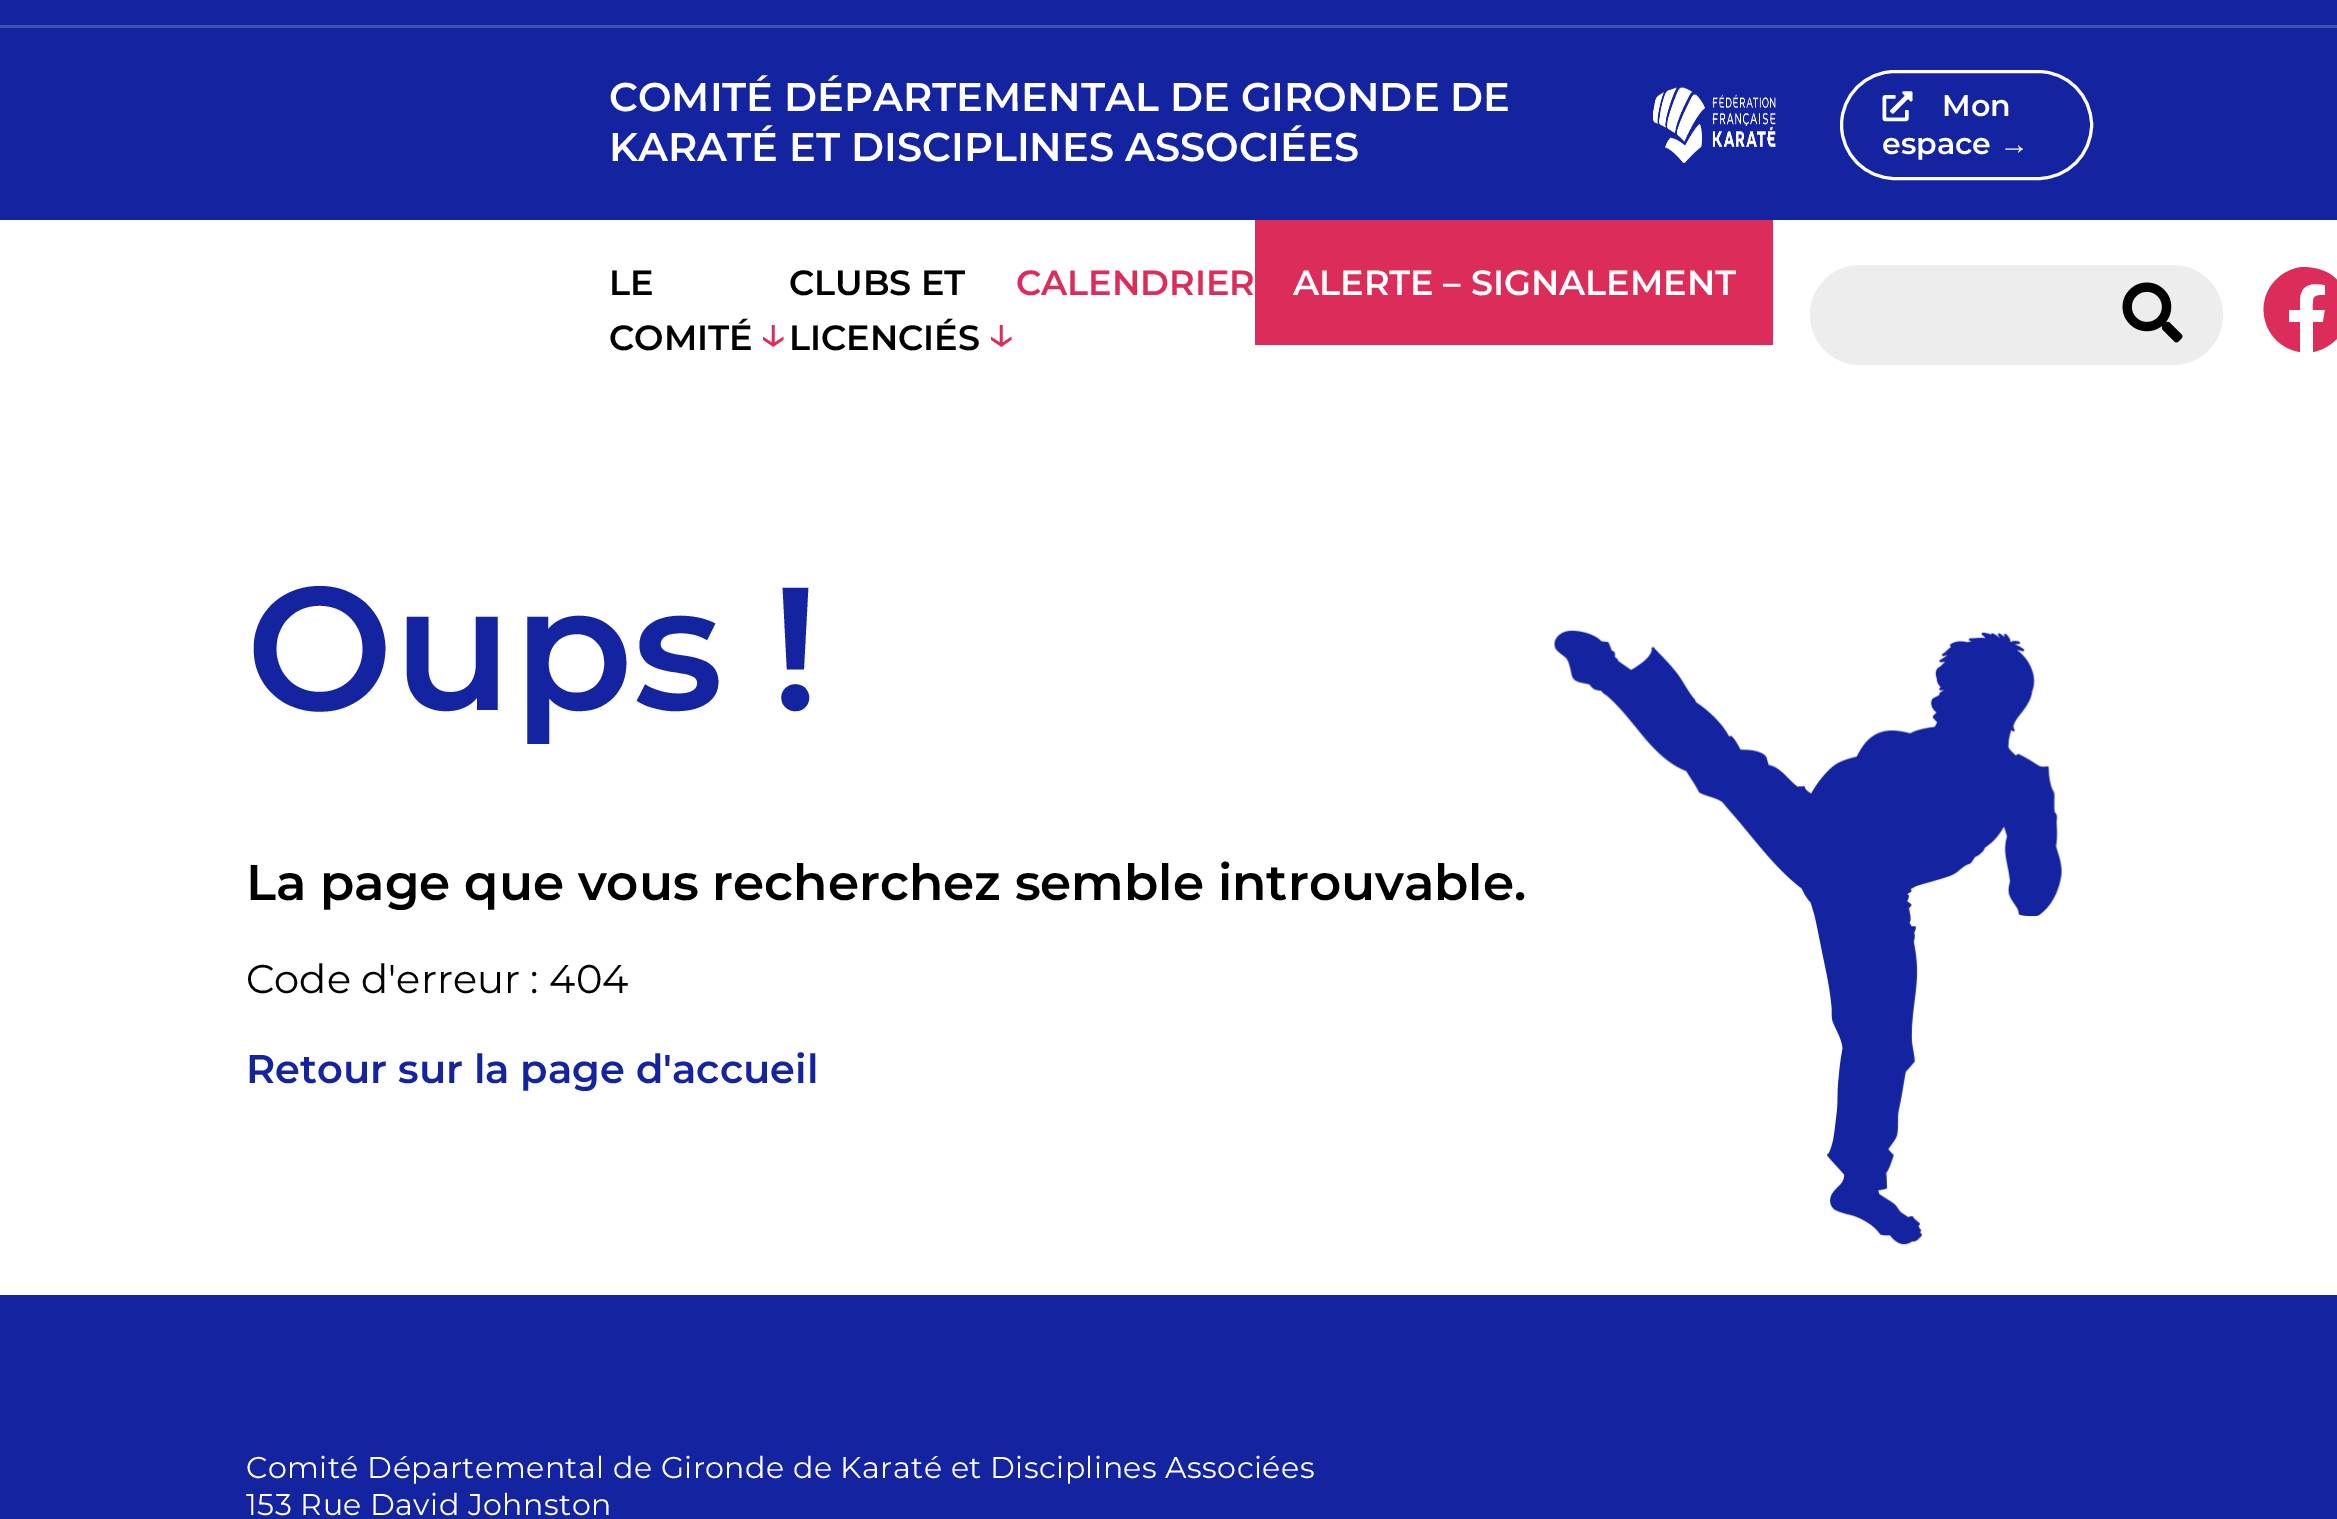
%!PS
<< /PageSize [2337 1519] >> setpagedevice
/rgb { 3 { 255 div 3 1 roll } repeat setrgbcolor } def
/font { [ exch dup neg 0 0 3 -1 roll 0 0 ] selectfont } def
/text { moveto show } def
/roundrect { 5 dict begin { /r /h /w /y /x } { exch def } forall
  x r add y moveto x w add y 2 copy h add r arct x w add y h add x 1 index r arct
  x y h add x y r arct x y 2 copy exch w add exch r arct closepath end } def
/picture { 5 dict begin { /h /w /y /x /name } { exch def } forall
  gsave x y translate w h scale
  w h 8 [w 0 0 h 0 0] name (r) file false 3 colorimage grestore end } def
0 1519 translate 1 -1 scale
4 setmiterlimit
255 255 255 rgb
0 0 2337 1519 rectfill
20 35 160 rgb
0 0 2337 220 rectfill
67 79 179 rgb
0 25 2337 3 rectfill
(img_01.rgb) 1652 87 124 76 picture
255 255 255 rgb
3 setlinewidth
1841.5 71.5 250 107 53.5 roundrect stroke
(img_02.rgb) 1882 91 31 31 picture
220 45 90 rgb
1255 220 518 125 rectfill
237 237 237 rgb
1810 265 413 100 50 roundrect fill
(img_03.rgb) 2122 282 61 61 picture
220 45 90 rgb
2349 310 moveto 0 20 -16 38 -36 42 rcurveto 0 -30 rlineto 10 0 rlineto 2 -12 rlineto -12 0 rlineto 0 -13 -1 -15 12 -15 rcurveto 0 -10 rlineto -11 -2 -23 -2 -25 12 rcurveto 0 13 rlineto -11 0 rlineto 0 12 rlineto 11 0 rlineto 0 30 rlineto -37 -6 -49 -52 -21 -75 rcurveto 7 -6 15 -9 23 -10 rcurveto 10 0 20 2 28 7 rcurveto 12 8 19 21 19 36 rcurveto closepath fill
(img_04.rgb) 1554 630 508 615 picture
20 35 160 rgb
0 1295 2337 224 rectfill
/Montserrat-SemiBold 40 font
255 255 255 rgb
(COMITÉ DÉPARTEMENTAL DE GIRONDE DE) 609 111 text
(KARATÉ ET DISCIPLINES ASSOCIÉES) 609 161 text
/Montserrat-SemiBold 30 font
(Mon) 1942 116 text
(espace) 1882 154 text
/LiberationSans-Bold 30 font
(→) 1999 154 text
/Montserrat-SemiBold 35 font
0 0 0 rgb
(LE) 609 295 text
(COMITÉ) 609 350 text
/Montserrat-Regular 52 font
220 45 90 rgb
(↓) 757 350 text
/Montserrat-SemiBold 35 font
0 0 0 rgb
(CLUBS ET) 789 295 text
(LICENCIÉS) 789 350 text
/Montserrat-Regular 52 font
220 45 90 rgb
(↓) 985 350 text
/Montserrat-SemiBold 35 font
(CALENDRIER) 1016 295 text
255 255 255 rgb
(ALERTE – SIGNALEMENT) 1293 295 text
/Montserrat-SemiBold 175 font
20 35 160 rgb
(Oups !) 246 710 text
/Montserrat-SemiBold 50 font
0 0 0 rgb
(La page que vous recherchez semble introuvable.) 246 900 text
/Montserrat-Regular 40 font
(Code d'erreur : 404) 246 993 text
/Montserrat-SemiBold 40 font
20 35 160 rgb
(Retour sur la page d'accueil) 246 1083 text
/Montserrat-Regular 30 font
255 255 255 rgb
246 1478 moveto 0.45 0 (Comité Départemental de Gironde de Karaté et Disciplines Associées) ashow
246 1515 moveto 0.45 0 (153 Rue David Johnston) ashow
showpage
